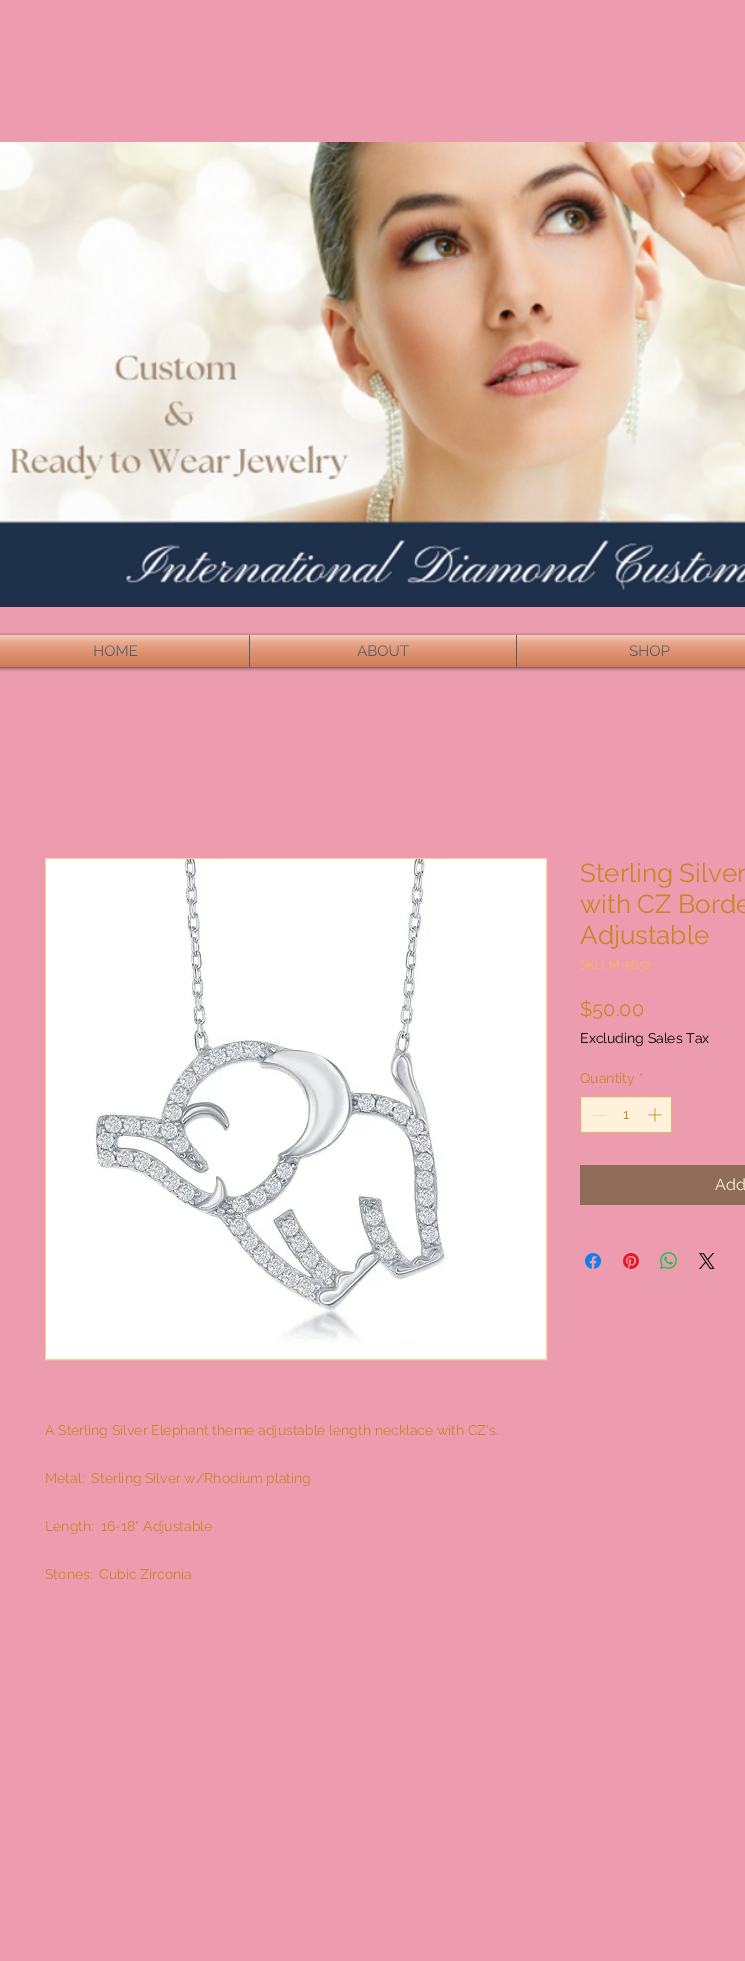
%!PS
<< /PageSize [745 1961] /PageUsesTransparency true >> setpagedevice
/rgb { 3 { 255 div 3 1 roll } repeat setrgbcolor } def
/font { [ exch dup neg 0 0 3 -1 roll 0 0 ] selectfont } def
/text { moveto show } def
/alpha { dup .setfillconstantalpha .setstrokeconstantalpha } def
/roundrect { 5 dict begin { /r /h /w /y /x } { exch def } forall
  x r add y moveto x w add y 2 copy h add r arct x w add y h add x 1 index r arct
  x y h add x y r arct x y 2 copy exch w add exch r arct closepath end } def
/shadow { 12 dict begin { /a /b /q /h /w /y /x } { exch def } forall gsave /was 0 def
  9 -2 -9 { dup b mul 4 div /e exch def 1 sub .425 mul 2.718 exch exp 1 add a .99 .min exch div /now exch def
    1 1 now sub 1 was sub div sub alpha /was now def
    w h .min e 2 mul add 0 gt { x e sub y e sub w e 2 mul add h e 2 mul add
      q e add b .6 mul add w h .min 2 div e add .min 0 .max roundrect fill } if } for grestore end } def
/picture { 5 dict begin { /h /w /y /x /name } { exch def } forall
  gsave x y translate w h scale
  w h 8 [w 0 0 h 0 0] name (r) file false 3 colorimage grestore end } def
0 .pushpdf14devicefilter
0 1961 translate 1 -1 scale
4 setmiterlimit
237 156 176 rgb
0 0 745 1961 rectfill
(img_01.rgb) 0 142 745 465 picture
0 0 0 rgb
-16 636 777 32 10 2 0.6 shadow
239 131 84 rgb
0 635 249 32 rectfill
250 635 266 32 rectfill
79 93 117 rgb
249 635 1 32 rectfill
239 131 84 rgb
517 635 228 32 rectfill
79 93 117 rgb
516 635 1 32 rectfill
255 241 219 rgb
580.5 1096.5 moveto 91 0 rlineto 0 36 rlineto -91 0 rlineto closepath gsave fill grestore
221 177 110 rgb
stroke
227 220 209 rgb
592 1115 13 1 rectfill
(img_08.rgb) 648 1108 14 14 picture
142 108 87 rgb
580 1165 165 40 rectfill
(img_09.rgb) 585 1253 16 16 picture
(img_10.rgb) 623 1253 16 16 picture
(img_11.rgb) 660 1252 17 17 picture
(img_12.rgb) 699 1253 16 16 picture
249 209 149 rgb
45.5 858.5 501 501 rectstroke
(img_13.rgb) 46 859 500 500 picture
/Raleway-Regular 15 font
45 49 66 rgb
(HOME) 93 656 text
(img_02.rgb) 0 635 249 32 picture
(img_03.rgb) 0 635 249 32 picture
(ABOUT) 357 656 text
(img_04.rgb) 250 635 266 32 picture
(img_05.rgb) 250 635 266 32 picture
(SHOP) 629 656 text
(img_06.rgb) 517 635 228 32 picture
(img_07.rgb) 517 635 228 32 picture
/Raleway-Regular 26 font
199 135 37 rgb
(Sterling Silver) 580 882 text
(with CZ Borde) 580 913 text
(Adjustable) 580 944 text
/Raleway-Regular 12 font
252 182 76 rgb
(SKU: M-5657) 580 969 text
/Raleway-Regular 20 font
199 135 37 rgb
($50.00) 580 1016 text
/Raleway-Regular 14 font
0 0 0 rgb
(Excluding Sales Tax) 580 1043 text
199 135 37 rgb
(Quantity) 580 1083 text
(*) 639 1083 text
(1) 623 1119 text
/Raleway-Regular 16 font
255 241 219 rgb
(Add) 715 1190 text
/Raleway-Regular 14 font
199 135 37 rgb
(A Sterling Silver Elephant theme adjustable length necklace with CZ's.) 45 1435 text
(Metal:  Sterling Silver w/Rhodium plating) 45 1483 text
(Length:  16-18" Adjustable) 45 1531 text
(Stones:  Cubic Zirconia) 45 1579 text
.poppdf14devicefilter showpage
